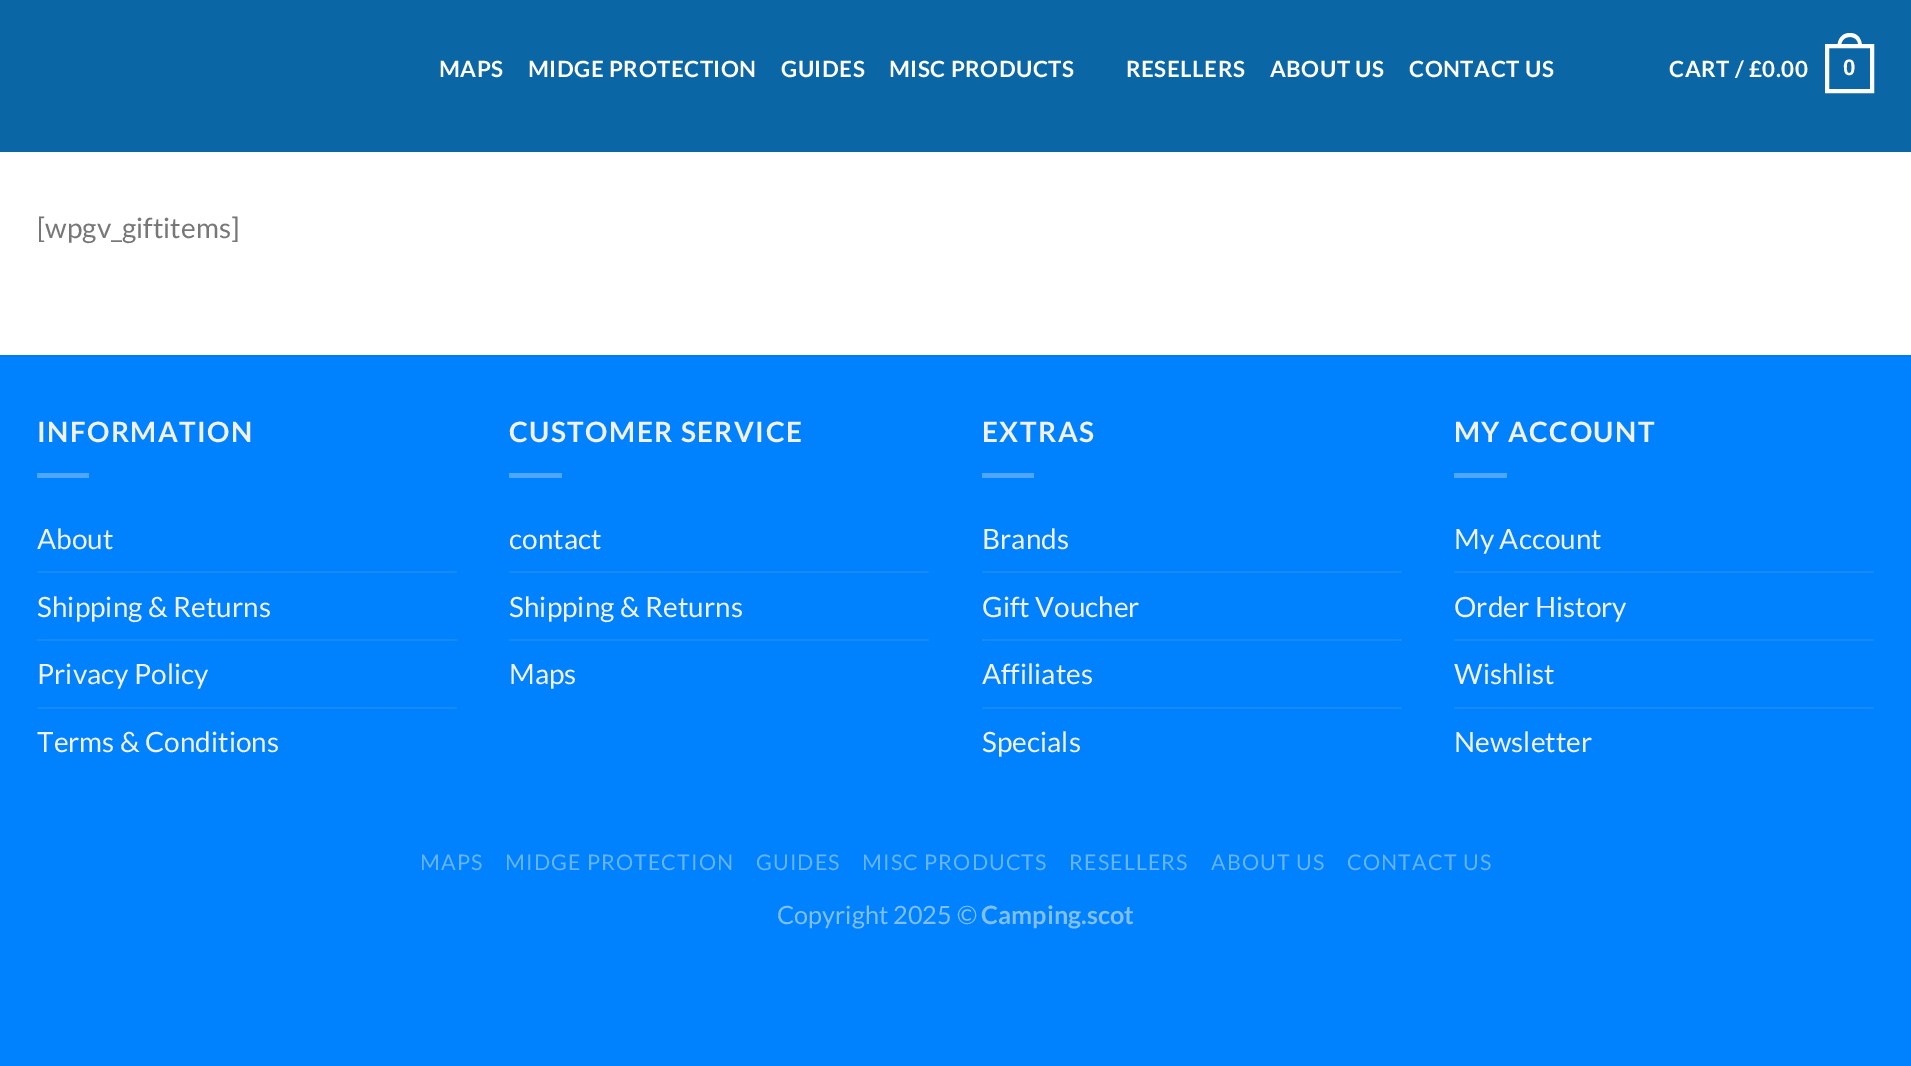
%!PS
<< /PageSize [1911 1066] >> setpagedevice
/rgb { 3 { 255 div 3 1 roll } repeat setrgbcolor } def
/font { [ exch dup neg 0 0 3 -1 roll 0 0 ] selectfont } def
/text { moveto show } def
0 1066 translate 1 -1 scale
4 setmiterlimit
0 129 253 rgb
0 0 1911 1066 rectfill
255 255 255 rgb
0 152 1911 203 rectfill
11 102 165 rgb
0 0 1911 152 rectfill
255 255 255 rgb
4 setlinewidth
1827 46 45 45 rectstroke
1850 33 moveto 8 0 12 6.5 12 14 rcurveto -24.5 0 rlineto 0 -7.5 4 -14 12.5 -14 rcurveto closepath 1850 37 moveto 6 0 8.5 4.5 8.5 10 rcurveto -17.5 0 rlineto 0 -5.5 2.5 -10 9 -10 rcurveto closepath eofill
0 123 240 rgb
0 355 1911 2 rectfill
77 167 254 rgb
37 473 52 5 rectfill
20 139 253 rgb
37 571 420 2 rectfill
37 639 420 2 rectfill
37 707 420 2 rectfill
77 167 254 rgb
509 473 53 5 rectfill
20 139 253 rgb
509 571 420 2 rectfill
509 639 420 2 rectfill
77 167 254 rgb
982 473 52 5 rectfill
20 139 253 rgb
982 571 420 2 rectfill
982 639 420 2 rectfill
982 707 420 2 rectfill
77 167 254 rgb
1454 473 53 5 rectfill
20 139 253 rgb
1454 571 420 2 rectfill
1454 639 420 2 rectfill
1454 707 420 2 rectfill
/Lato-Bold 22.4 font
255 255 255 rgb
439 77 moveto 0.5 0 (MAPS) ashow
528 77 moveto 0.5 0 (MIDGE PROTECTION) ashow
781 77 moveto 0.5 0 (GUIDES) ashow
889 77 moveto 0.5 0 (MISC PRODUCTS) ashow
1126 77 moveto 0.5 0 (RESELLERS) ashow
1270 77 moveto 0.5 0 (ABOUT US) ashow
1409 77 moveto 0.5 0 (CONTACT US) ashow
1669 77 moveto 0.5 0 (CART / £0.00) ashow
/LiberationSans-Bold 22.4 font
1843 75 moveto 0.5 0 (0) ashow
/Lato-Regular 28 font
119 119 119 rgb
([wpgv_giftitems]) 37 238 text
/Lato-Bold 28 font
241 241 241 rgb
37 442 moveto 1.4 0 (INFORMATION) ashow
/Lato-Regular 28 font
(About) 37 549 text
(Shipping & Returns) 37 617 text
(Privacy Policy) 37 684 text
(Terms & Conditions) 37 752 text
/Lato-Bold 28 font
509 442 moveto 1.4 0 (CUSTOMER SERVICE) ashow
/Lato-Regular 28 font
(contact) 509 549 text
(Shipping & Returns) 509 617 text
(Maps) 509 684 text
/Lato-Bold 28 font
982 442 moveto 1.4 0 (EXTRAS) ashow
/Lato-Regular 28 font
(Brands) 982 549 text
(Gift Voucher) 982 617 text
(Affiliates) 982 684 text
(Specials) 982 752 text
/Lato-Bold 28 font
1454 442 moveto 1.4 0 (MY ACCOUNT) ashow
/Lato-Regular 28 font
(My Account) 1454 549 text
(Order History) 1454 617 text
(Wishlist) 1454 684 text
(Newsletter) 1454 752 text
/Lato-Regular 21.5 font
102 180 254 rgb
420 870 moveto 1.1 0 (MAPS) ashow
505 870 moveto 1.1 0 (MIDGE PROTECTION) ashow
756 870 moveto 1.1 0 (GUIDES) ashow
862 870 moveto 1.1 0 (MISC PRODUCTS) ashow
1069 870 moveto 1.1 0 (RESELLERS) ashow
1211 870 moveto 1.1 0 (ABOUT US) ashow
1347 870 moveto 1.1 0 (CONTACT US) ashow
/Lato-Regular 25.25 font
128 192 254 rgb
(Copyright 2025 ©) 777 924 text
/Lato-Bold 25.25 font
(Camping.scot) 981 924 text
showpage
